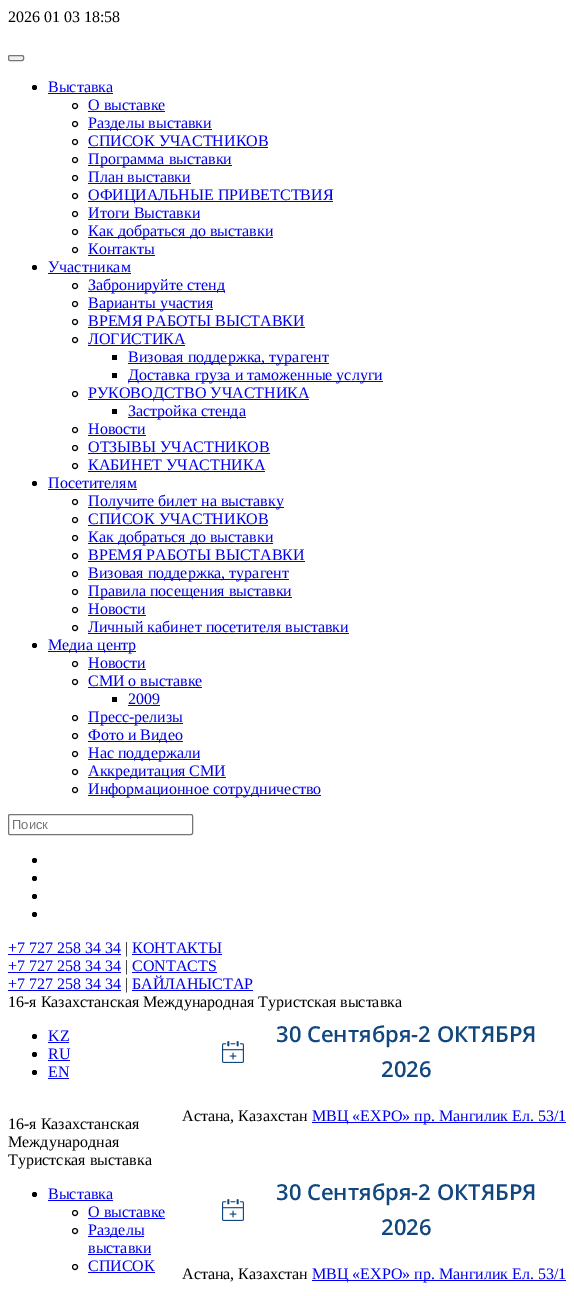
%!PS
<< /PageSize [574 1296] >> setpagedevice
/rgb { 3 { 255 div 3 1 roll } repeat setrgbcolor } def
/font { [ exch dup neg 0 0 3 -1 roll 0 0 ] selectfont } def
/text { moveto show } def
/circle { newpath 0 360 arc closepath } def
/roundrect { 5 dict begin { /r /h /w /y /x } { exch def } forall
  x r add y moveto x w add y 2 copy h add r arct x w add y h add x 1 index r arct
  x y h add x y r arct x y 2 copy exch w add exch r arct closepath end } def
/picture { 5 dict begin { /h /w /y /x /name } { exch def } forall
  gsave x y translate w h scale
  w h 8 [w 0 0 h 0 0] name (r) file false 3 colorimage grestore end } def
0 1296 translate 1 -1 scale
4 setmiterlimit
255 255 255 rgb
0 0 574 1296 rectfill
239 239 239 rgb
8.5 55.5 15 5 1.5 roundrect gsave fill grestore
118 118 118 rgb
stroke
0 0 0 rgb
34.5 87.5 2.5 circle fill
0 0 238 rgb
48 93 65 1 rectfill
0 0 0 rgb
75 106 2.5 circle stroke
0 0 238 rgb
88 111 77 1 rectfill
0 0 0 rgb
75 124 2.5 circle stroke
0 0 238 rgb
88 129 124 1 rectfill
0 0 0 rgb
75 142 2.5 circle stroke
0 0 238 rgb
88 147 180 1 rectfill
0 0 0 rgb
75 160 2.5 circle stroke
0 0 238 rgb
88 165 144 1 rectfill
0 0 0 rgb
75 178 2.5 circle stroke
0 0 238 rgb
88 183 103 1 rectfill
0 0 0 rgb
75 196 2.5 circle stroke
0 0 238 rgb
88 201 245 1 rectfill
0 0 0 rgb
75 214 2.5 circle stroke
0 0 238 rgb
88 219 112 1 rectfill
0 0 0 rgb
75 232 2.5 circle stroke
0 0 238 rgb
88 237 185 1 rectfill
0 0 0 rgb
75 250 2.5 circle stroke
0 0 238 rgb
88 255 67 1 rectfill
0 0 0 rgb
34.5 267.5 2.5 circle fill
0 0 238 rgb
48 273 83 1 rectfill
0 0 0 rgb
75 286 2.5 circle stroke
0 0 238 rgb
88 291 137 1 rectfill
0 0 0 rgb
75 304 2.5 circle stroke
0 0 238 rgb
88 309 125 1 rectfill
0 0 0 rgb
75 322 2.5 circle stroke
0 0 238 rgb
88 327 217 1 rectfill
0 0 0 rgb
75 340 2.5 circle stroke
0 0 238 rgb
88 345 97 1 rectfill
0 0 0 rgb
112 355 5 5 rectfill
0 0 238 rgb
128 363 201 1 rectfill
0 0 0 rgb
112 373 5 5 rectfill
0 0 238 rgb
128 381 255 1 rectfill
0 0 0 rgb
75 394 2.5 circle stroke
0 0 238 rgb
88 399 221 1 rectfill
0 0 0 rgb
112 409 5 5 rectfill
0 0 238 rgb
128 417 118 1 rectfill
0 0 0 rgb
75 430 2.5 circle stroke
0 0 238 rgb
88 435 58 1 rectfill
0 0 0 rgb
75 448 2.5 circle stroke
0 0 238 rgb
88 453 182 1 rectfill
0 0 0 rgb
75 466 2.5 circle stroke
0 0 238 rgb
88 471 177 1 rectfill
0 0 0 rgb
34.5 483.5 2.5 circle fill
0 0 238 rgb
48 489 89 1 rectfill
0 0 0 rgb
75 502 2.5 circle stroke
0 0 238 rgb
88 507 196 1 rectfill
0 0 0 rgb
75 520 2.5 circle stroke
0 0 238 rgb
88 525 180 1 rectfill
0 0 0 rgb
75 538 2.5 circle stroke
0 0 238 rgb
88 543 185 1 rectfill
0 0 0 rgb
75 556 2.5 circle stroke
0 0 238 rgb
88 561 217 1 rectfill
0 0 0 rgb
75 574 2.5 circle stroke
0 0 238 rgb
88 579 201 1 rectfill
0 0 0 rgb
75 592 2.5 circle stroke
0 0 238 rgb
88 597 204 1 rectfill
0 0 0 rgb
75 610 2.5 circle stroke
0 0 238 rgb
88 615 58 1 rectfill
0 0 0 rgb
75 628 2.5 circle stroke
0 0 238 rgb
88 633 261 1 rectfill
0 0 0 rgb
34.5 645.5 2.5 circle fill
0 0 238 rgb
48 651 88 1 rectfill
0 0 0 rgb
75 664 2.5 circle stroke
0 0 238 rgb
88 669 58 1 rectfill
0 0 0 rgb
75 682 2.5 circle stroke
0 0 238 rgb
88 687 114 1 rectfill
0 0 0 rgb
112 697 5 5 rectfill
0 0 238 rgb
128 705 32 1 rectfill
0 0 0 rgb
75 718 2.5 circle stroke
0 0 238 rgb
88 723 95 1 rectfill
0 0 0 rgb
75 736 2.5 circle stroke
0 0 238 rgb
88 741 95 1 rectfill
0 0 0 rgb
75 754 2.5 circle stroke
0 0 238 rgb
88 759 112 1 rectfill
0 0 0 rgb
75 772 2.5 circle stroke
0 0 238 rgb
88 777 138 1 rectfill
0 0 0 rgb
75 790 2.5 circle stroke
0 0 238 rgb
88 795 233 1 rectfill
118 118 118 rgb
8.5 814.5 184 20 1.5 roundrect stroke
0 0 0 rgb
34.5 860.5 2.5 circle fill
34.5 878.5 2.5 circle fill
34.5 896.5 2.5 circle fill
34.5 914.5 2.5 circle fill
0 0 238 rgb
8 954 113 1 rectfill
132 954 90 1 rectfill
8 972 113 1 rectfill
132 972 85 1 rectfill
8 990 113 1 rectfill
132 990 121 1 rectfill
(img_01.rgb) 222 1041 22 22 picture
312 1122 254 1 rectfill
0 0 0 rgb
34.5 1036.5 2.5 circle fill
0 0 238 rgb
48 1042 21 1 rectfill
0 0 0 rgb
34.5 1054.5 2.5 circle fill
0 0 238 rgb
48 1060 22 1 rectfill
0 0 0 rgb
34.5 1072.5 2.5 circle fill
0 0 238 rgb
48 1078 21 1 rectfill
(img_01.rgb) 222 1199 22 22 picture
312 1280 254 1 rectfill
0 0 0 rgb
34.5 1194.5 2.5 circle fill
0 0 238 rgb
48 1200 65 1 rectfill
0 0 0 rgb
75 1213 2.5 circle stroke
0 0 238 rgb
88 1218 77 1 rectfill
0 0 0 rgb
75 1231 2.5 circle stroke
0 0 238 rgb
88 1236 56 1 rectfill
88 1254 63 1 rectfill
0 0 0 rgb
75 1267 2.5 circle stroke
0 0 238 rgb
88 1272 67 1 rectfill
/LiberationSerif-Regular 16 font
0 0 0 rgb
(2026 01 03 18:58) 8 22 text
0 0 238 rgb
(Выставка) 48 92 text
(О выставке) 88 110 text
(Разделы выставки) 88 128 text
(СПИСОК УЧАСТНИКОВ) 88 146 text
(Программа выставки) 88 164 text
(План выставки) 88 182 text
(ОФИЦИАЛЬНЫЕ ПРИВЕТСТВИЯ) 88 200 text
(Итоги Выставки) 88 218 text
(Как добраться до выставки) 88 236 text
(Контакты) 88 254 text
(Участникам) 48 272 text
(Забронируйте стенд) 88 290 text
(Варианты участия) 88 308 text
(ВРЕМЯ РАБОТЫ ВЫСТАВКИ) 88 326 text
(ЛОГИСТИКА) 88 344 text
(Визовая поддержка, турагент) 128 362 text
(Доставка груза и таможенные услуги) 128 380 text
(РУКОВОДСТВО УЧАСТНИКА) 88 398 text
(Застройка стенда) 128 416 text
(Новости) 88 434 text
(ОТЗЫВЫ УЧАСТНИКОВ) 88 452 text
(КАБИНЕТ УЧАСТНИКА) 88 470 text
(Посетителям) 48 488 text
(Получите билет на выставку) 88 506 text
(СПИСОК УЧАСТНИКОВ) 88 524 text
(Как добраться до выставки) 88 542 text
(ВРЕМЯ РАБОТЫ ВЫСТАВКИ) 88 560 text
(Визовая поддержка, турагент) 88 578 text
(Правила посещения выставки) 88 596 text
(Новости) 88 614 text
(Личный кабинет посетителя выставки) 88 632 text
(Медиа центр) 48 650 text
(Новости) 88 668 text
(СМИ о выставке) 88 686 text
(2009) 128 704 text
(Пресс-релизы) 88 722 text
(Фото и Видео) 88 740 text
(Нас поддержали) 88 758 text
(Аккредитация СМИ) 88 776 text
(Информационное сотрудничество) 88 794 text
/LiberationSans-Regular 13 font
117 117 117 rgb
(Поиск) 12 829 text
/LiberationSerif-Regular 16 font
0 0 238 rgb
(+7 727 258 34 34) 8 953 text
0 0 0 rgb
(|) 125 953 text
0 0 238 rgb
(КОНТАКТЫ) 132 953 text
(+7 727 258 34 34) 8 971 text
0 0 0 rgb
(|) 125 971 text
0 0 238 rgb
(CONTACTS) 132 971 text
(+7 727 258 34 34) 8 989 text
0 0 0 rgb
(|) 125 989 text
0 0 238 rgb
(БАЙЛАНЫСТАР) 132 989 text
0 0 0 rgb
(16-я Казахстанская Международная Туристская выставка) 8 1007 text
/OpenSans-SemiBold 22 font
17 71 127 rgb
(30 Сентября-2 ОКТЯБРЯ) 276 1042 text
(2026) 381 1077 text
/LiberationSerif-Regular 16 font
0 0 0 rgb
(Астана, Казахстан) 182 1121 text
0 0 238 rgb
(МВЦ «EXPO» пр. Мангилик Ел. 53/1) 312 1121 text
(KZ) 48 1041 text
(RU) 48 1059 text
(EN) 48 1077 text
0 0 0 rgb
(16-я Казахстанская) 8 1129 text
(Международная) 8 1147 text
(Туристская выставка) 8 1165 text
/OpenSans-SemiBold 22 font
17 71 127 rgb
(30 Сентября-2 ОКТЯБРЯ) 276 1200 text
(2026) 381 1235 text
/LiberationSerif-Regular 16 font
0 0 0 rgb
(Астана, Казахстан) 182 1279 text
0 0 238 rgb
(МВЦ «EXPO» пр. Мангилик Ел. 53/1) 312 1279 text
(Выставка) 48 1199 text
(О выставке) 88 1217 text
(Разделы) 88 1235 text
(выставки) 88 1253 text
(СПИСОК) 88 1271 text
showpage
